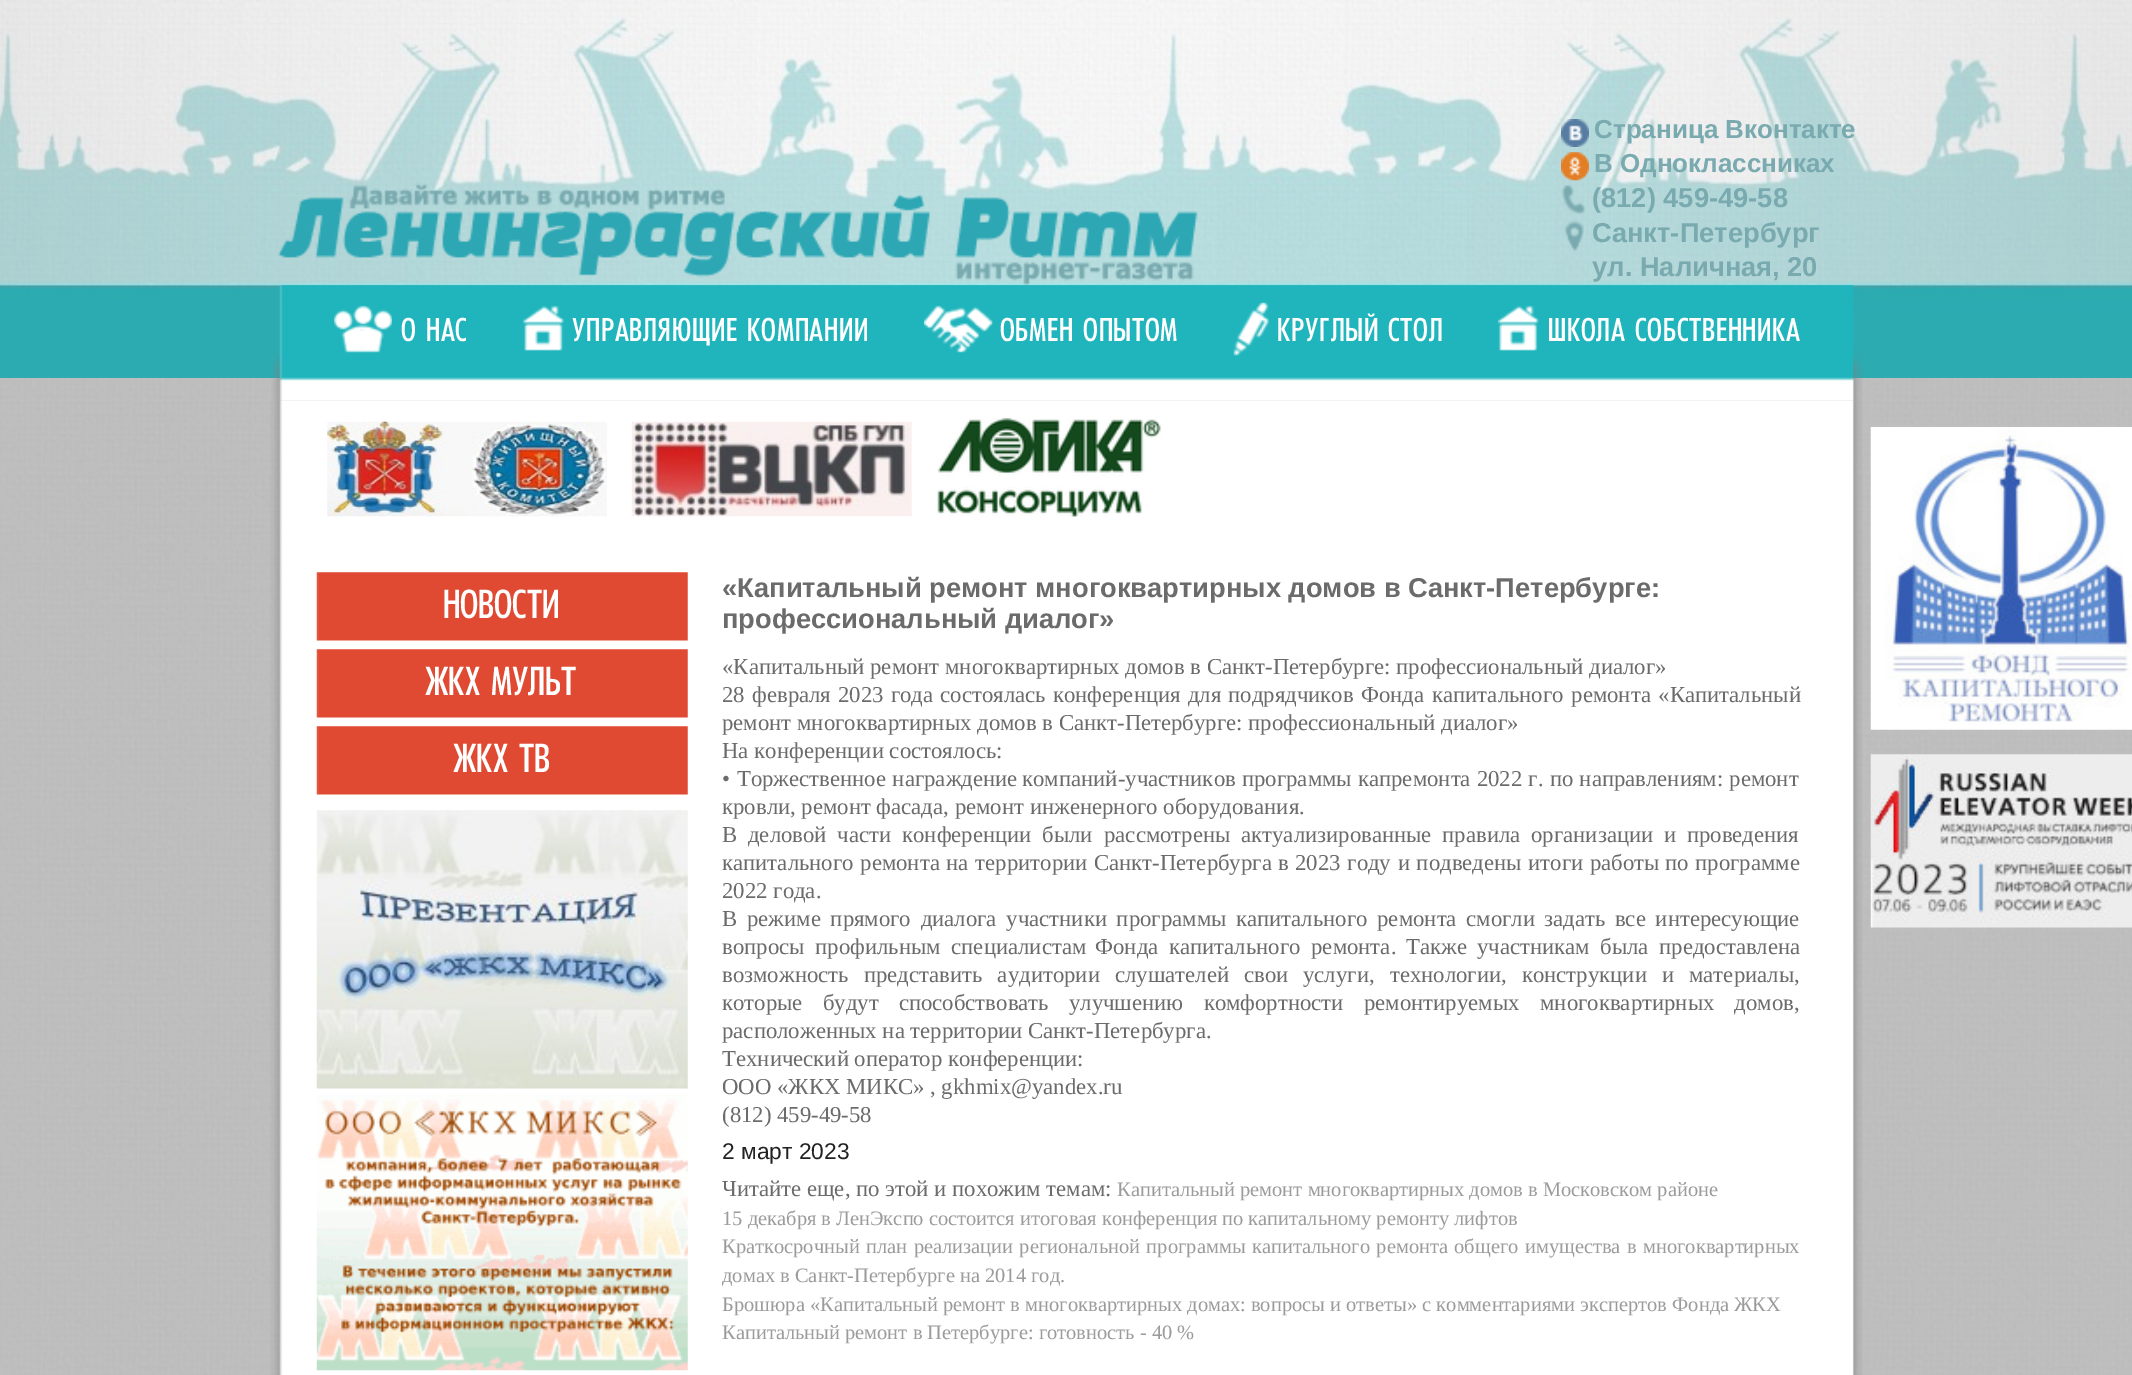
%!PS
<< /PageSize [2132 1375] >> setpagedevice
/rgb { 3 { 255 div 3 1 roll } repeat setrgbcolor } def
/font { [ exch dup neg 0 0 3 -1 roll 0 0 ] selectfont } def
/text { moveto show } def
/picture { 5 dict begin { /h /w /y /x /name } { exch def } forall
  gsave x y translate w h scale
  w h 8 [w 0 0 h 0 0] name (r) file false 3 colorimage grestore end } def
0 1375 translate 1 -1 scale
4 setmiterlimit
255 255 255 rgb
0 0 2132 1375 rectfill
(img_01.rgb) 0 0 2132 1375 picture
(img_02.rgb) 278 183 920 102 picture
(img_03.rgb) 1561 119 28 28 picture
(img_04.rgb) 1561 152 28 29 picture
(img_05.rgb) 1561 185 25 29 picture
(img_06.rgb) 1564 220 20 32 picture
(img_07.rgb) 271 285 1592 116 picture
(img_08.rgb) 334 305 58 48 picture
(img_09.rgb) 523 305 41 46 picture
(img_10.rgb) 924 305 69 48 picture
(img_11.rgb) 1233 302 36 54 picture
(img_12.rgb) 1498 305 41 46 picture
(img_13.rgb) 270 400 1593 975 picture
(img_14.rgb) 327 421 280 96 picture
(img_15.rgb) 631 421 281 96 picture
(img_16.rgb) 937 418 224 99 picture
(img_17.rgb) 1870 427 262 303 picture
(img_18.rgb) 1870 754 262 174 picture
(img_19.rgb) 316 572 372 69 picture
(img_19.rgb) 316 649 372 69 picture
(img_19.rgb) 316 726 372 69 picture
(img_20.rgb) 316 810 372 279 picture
(img_21.rgb) 316 1095 372 276 picture
/LiberationSans-Bold 26 font
121 170 175 rgb
(Страница Вконтакте) 1594 138 text
(В Одноклассниках) 1594 172 text
/LiberationSans-Bold 27.3 font
(\(812\) 459-49-58) 1592 207 text
(Санкт-Петербург) 1592 242 text
(ул. Наличная, 20) 1592 276 text
/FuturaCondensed-Regular 35 font
255 255 255 rgb
401 341 moveto 0.7 0 (О НАС) ashow
572 341 moveto 0.7 0 (УПРАВЛЯЮЩИЕ КОМПАНИИ) ashow
1000 341 moveto 0.7 0 (ОБМЕН ОПЫТОМ) ashow
1277 341 moveto 0.7 0 (КРУГЛЫЙ СТОЛ) ashow
1548 341 moveto 0.7 0 (ШКОЛА СОБСТВЕННИКА) ashow
/FuturaCondensed-Regular 43 font
(НОВОСТИ) 443 618 text
(ЖКХ МУЛЬТ) 425 695 text
(ЖКХ ТВ) 453 772 text
/LiberationSans-Bold 27.3 font
107 107 107 rgb
(«Капитальный ремонт многоквартирных домов в Санкт-Петербурге:) 722 597 text
(профессиональный диалог») 722 628 text
/LiberationSerif-Regular 22.75 font
(«Капитальный ремонт многоквартирных домов в Санкт-Петербурге: профессиональный диалог») 722 674 text
722 702 moveto 1.5 0 32 (28 февраля 2023 года состоялась конференция для подрядчиков Фонда) widthshow
1432 702 moveto 2 0 32 (капитального ремонта «Капитальный) widthshow
(ремонт многоквартирных домов в Санкт-Петербурге: профессиональный диалог») 722 730 text
(На конференции состоялось:) 722 758 text
722 786 moveto 1 0 32 (• Торжественное награждение) widthshow
1022 786 moveto 0.5 0 32 (компаний-участников программы капремонта 2022 г. по направлениям: ремонт) widthshow
(кровли, ремонт фасада, ремонт инженерного оборудования.) 722 814 text
722 842 moveto 5 0 32 (В деловой части) widthshow
902 842 moveto 5 0 32 (конференции были) widthshow
1104 842 moveto 5 0 32 (рассмотрены актуализированные правила) widthshow
1531 842 moveto 5 0 32 (организации и проведения) widthshow
722 870 moveto 1 0 32 (капитального ремонта на территории Санкт-Петербурга в) widthshow
1295 870 moveto 1 0 32 (2023 году и подведены итоги работы) widthshow
1665 870 moveto 1 0 32 (по программе) widthshow
(2022 года.) 722 898 text
722 926 moveto 4 0 32 (В режиме прямого диалога участники программы капитального ремонта смогли) widthshow
1544 926 moveto 4 0 32 (задать все интересующие) widthshow
722 954 moveto 5 0 32 (вопросы профильным специалистам) widthshow
1095 954 moveto 5 0 32 (Фонда капитального ремонта.) widthshow
(Также) 1406 954 text
(участникам) 1477 954 text
1600 954 moveto 5 0 32 (была предоставлена) widthshow
722 982 moveto 9.5 0 32 (возможность представить аудитории слушателей свои) widthshow
1303 982 moveto 9.5 0 32 (услуги, технологии, конструкции) widthshow
(и) 1662 982 text
(материалы,) 1689 982 text
722 1010 moveto 14.5 0 32 (которые будут способствовать улучшению комфортности ремонтируемых) widthshow
1540 1010 moveto 14.5 0 32 (многоквартирных домов,) widthshow
(расположенных на территории Санкт-Петербурга.) 722 1038 text
(Технический оператор конференции:) 722 1066 text
(ООО «ЖКХ МИКС» , gkhmix@yandex.ru) 722 1094 text
(\(812\) 459-49-58) 722 1122 text
/LiberationSans-Regular 22.75 font
34 34 34 rgb
(2 март 2023) 722 1159 text
/LiberationSerif-Regular 22.75 font
107 107 107 rgb
(Читайте еще, по этой и похожим темам:) 722 1196 text
/LiberationSerif-Regular 20.47 font
155 155 155 rgb
(Капитальный ремонт многоквартирных домов в Московском районе) 1117 1196 text
(15 декабря в ЛенЭкспо состоится итоговая конференция по капитальному ремонту лифтов) 722 1225 text
722 1253 moveto 1.25 0 32 (Краткосрочный план реализации региональной программы капитального ремонта общего имущества в многоквартирных) widthshow
(домах в Санкт-Петербурге на 2014 год.) 722 1282 text
(Брошюра «Капитальный ремонт в многоквартирных домах: вопросы и ответы» с комментариями экспертов Фонда ЖКХ) 722 1311 text
(Капитальный ремонт в Петербурге: готовность - 40 %) 722 1339 text
showpage
